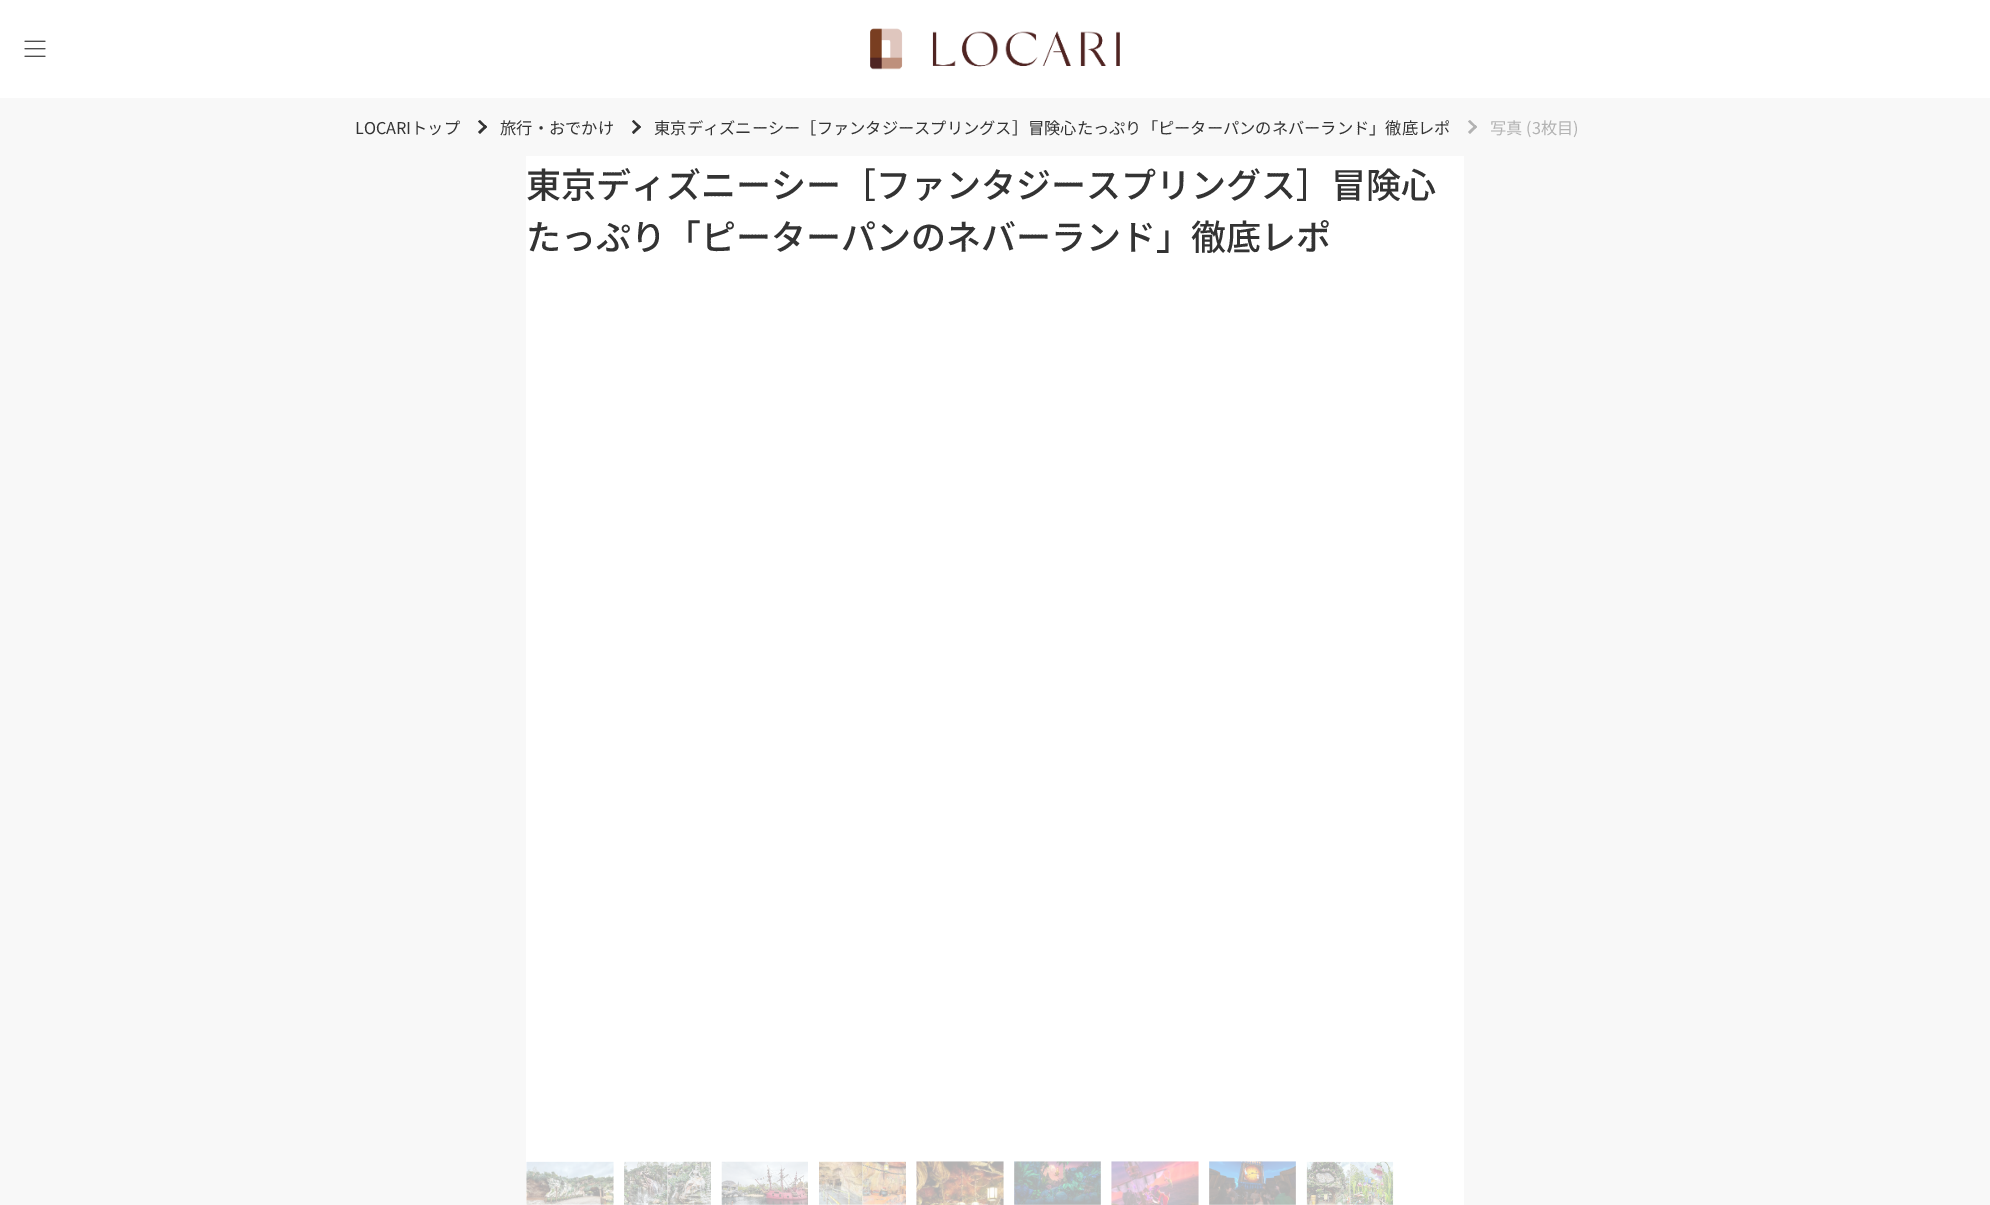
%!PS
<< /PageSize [1990 1205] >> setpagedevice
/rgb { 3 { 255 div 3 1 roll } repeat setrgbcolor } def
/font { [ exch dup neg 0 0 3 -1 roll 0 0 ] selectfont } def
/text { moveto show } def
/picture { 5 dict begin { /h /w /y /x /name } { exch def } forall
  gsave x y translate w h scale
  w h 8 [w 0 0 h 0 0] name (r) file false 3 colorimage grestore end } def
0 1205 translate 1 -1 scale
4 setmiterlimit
248 248 248 rgb
0 0 1990 1205 rectfill
255 255 255 rgb
0 0 1990 98 rectfill
(img_01.rgb) 24 40 22 17 picture
(img_02.rgb) 870 28 250 42 picture
51 51 51 rgb
478 121.5 moveto 2 -1.5 rlineto 7 7 rlineto -1.5 1.5 rlineto closepath fill
478 132 moveto 7.5 -7 rlineto 1.5 2 rlineto -7 7 rlineto closepath fill
632 121.5 moveto 1.5 -1.5 rlineto 7.5 7 rlineto -2 1.5 rlineto closepath fill
632 132 moveto 7 -7 rlineto 2 2 rlineto -7.5 7 rlineto closepath fill
178 178 178 rgb
1468 121.5 moveto 2 -1.5 rlineto 7 7 rlineto -1.5 1.5 rlineto closepath fill
1468 132 moveto 7.5 -7 rlineto 1.5 2 rlineto -7 7 rlineto closepath fill
255 255 255 rgb
526 156 938 1049 rectfill
(img_03.rgb) 526 1161 88 44 picture
(img_04.rgb) 624 1161 87 44 picture
(img_05.rgb) 721 1161 87 44 picture
(img_06.rgb) 819 1161 87 44 picture
(img_07.rgb) 916 1161 88 44 picture
(img_08.rgb) 1014 1161 87 44 picture
(img_09.rgb) 1111 1161 88 44 picture
(img_10.rgb) 1209 1161 87 44 picture
(img_11.rgb) 1306 1161 88 44 picture
/NotoSansJP-Regular 16.25 font
51 51 51 rgb
(LOCARIトップ) 355 134 text
(旅行・おでかけ) 500 134 text
(東京ディズニーシー［ファンタジースプリングス］冒険心たっぷり「ピーターパンのネバーランド」徹底レポ) 654 134 text
178 178 178 rgb
(写真 \(3枚目\)) 1490 134 text
/NotoSansJP-Medium 35 font
51 51 51 rgb
(東京ディズニーシー［ファンタジースプリングス］冒険心) 526 198 text
(たっぷり「ピーターパンのネバーランド」徹底レポ) 526 250 text
showpage
